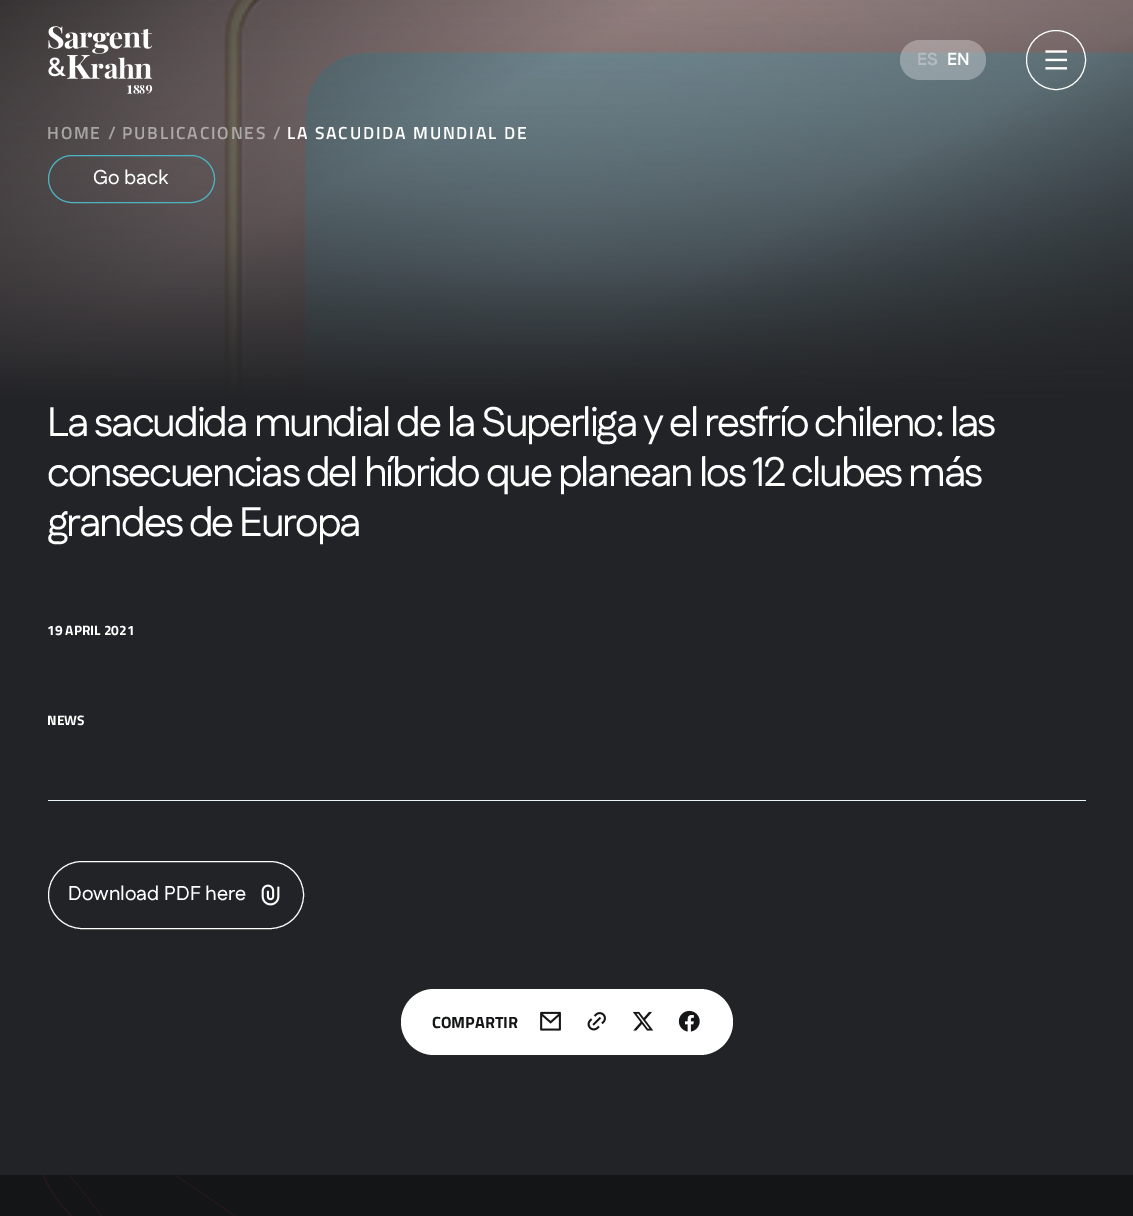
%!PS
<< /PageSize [1133 1216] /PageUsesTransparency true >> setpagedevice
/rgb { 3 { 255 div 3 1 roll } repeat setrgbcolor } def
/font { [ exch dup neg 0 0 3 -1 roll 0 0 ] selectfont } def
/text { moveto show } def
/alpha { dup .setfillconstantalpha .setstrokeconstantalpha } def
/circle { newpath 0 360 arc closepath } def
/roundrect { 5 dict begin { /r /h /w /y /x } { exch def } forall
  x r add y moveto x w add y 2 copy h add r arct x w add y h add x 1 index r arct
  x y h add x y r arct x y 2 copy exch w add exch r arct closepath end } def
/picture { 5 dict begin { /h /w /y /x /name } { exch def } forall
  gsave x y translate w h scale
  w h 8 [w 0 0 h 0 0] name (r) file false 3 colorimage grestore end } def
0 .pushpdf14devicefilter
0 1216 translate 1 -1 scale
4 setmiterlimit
34 35 38 rgb
0 0 1133 1216 rectfill
(img_03.rgb) 0 0 1133 400 picture
(img_01.rgb) 48 26 105 68 picture
0.3 alpha
255 255 255 rgb
900 40 86 40 20 roundrect fill
1 alpha
1056 60 29.5 circle stroke
(img_02.rgb) 1045 50 22 20 picture
77 180 193 rgb
48.5 155.5 166 47 23.5 roundrect stroke
237 244 251 rgb
48 800 1038 1 rectfill
255 255 255 rgb
48.5 861.5 255 67 33.5 roundrect stroke
(img_04.rgb) 261 884 19 22 picture
401 989 332 66 33 roundrect fill
(img_05.rgb) 540 1011 21 20 picture
(img_06.rgb) 587 1012 19 19 picture
(img_07.rgb) 632 1011 22 20 picture
(img_08.rgb) 678 1010 22 22 picture
20 21 22 rgb
0 1175 1133 41 rectfill
(img_09.rgb) 42 1175 194 41 picture
/Fustat-Bold 17.5 font
180 188 191 rgb
(ES) 917 65 text
255 255 255 rgb
(EN) 947 65 text
/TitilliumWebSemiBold-SemiBold 17.5 font
167 164 164 rgb
47 139 moveto 1.75 0 (HOME) ashow
108 139 moveto 1.75 0 (/) ashow
174 169 169 rgb
122 139 moveto 1.75 0 (PUBLICACIONES) ashow
273 139 moveto 1.75 0 (/) ashow
255 255 255 rgb
287 139 moveto 1.75 0 (LA SACUDIDA MUNDIAL DE) ashow
/Fustat-Medium 20 font
(Go back) 93 184 text
/Fustat-Regular 41.25 font
47 436 moveto -2.05 0 (La sacudida mundial de la Superliga y el resfrío chileno: las) ashow
47 486 moveto -2.05 0 (consecuencias del híbrido que planean los 12 clubes más) ashow
47 536 moveto -2.05 0 (grandes de Europa) ashow
/TitilliumWeb-Bold 13.75 font
(19 APRIL 2021) 47 635 text
(NEWS) 47 725 text
/Fustat-Medium 20 font
(Download PDF here) 68 900 text
/TitilliumWeb-Bold 16.25 font
20 21 22 rgb
(COMPARTIR) 432 1028 text
.poppdf14devicefilter showpage
